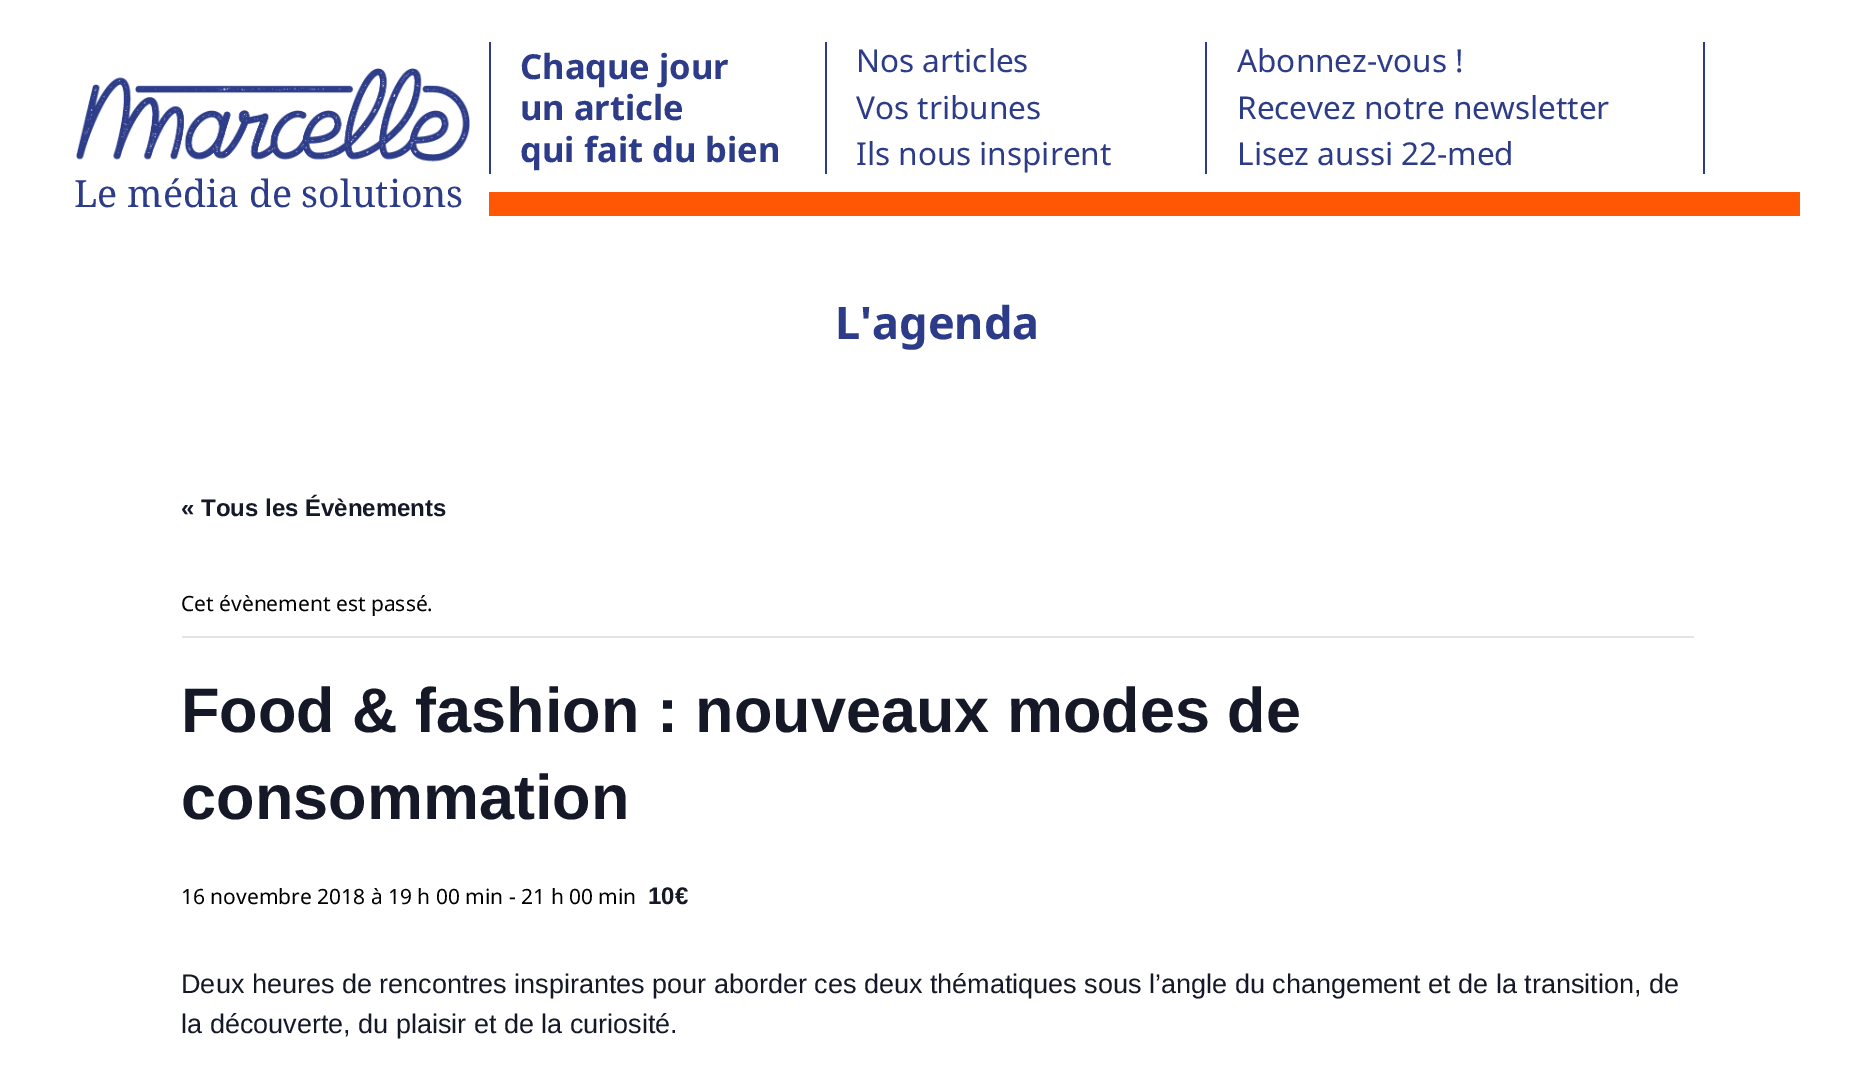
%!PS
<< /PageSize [1873 1067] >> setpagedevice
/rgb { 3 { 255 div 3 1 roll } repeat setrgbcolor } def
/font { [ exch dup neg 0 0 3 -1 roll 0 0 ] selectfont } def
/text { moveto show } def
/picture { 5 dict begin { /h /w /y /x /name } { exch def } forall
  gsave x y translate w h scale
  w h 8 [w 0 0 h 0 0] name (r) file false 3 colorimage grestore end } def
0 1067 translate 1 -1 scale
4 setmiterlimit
255 255 255 rgb
0 0 1873 1067 rectfill
255 87 3 rgb
489 192 1311 24 rectfill
45 60 137 rgb
489 42 2 132 rectfill
825 42 2 132 rectfill
1205 42 2 132 rectfill
1703 42 2 132 rectfill
(img_01.rgb) 76 68 394 94 picture
228 228 228 rgb
182 636 1512 2 rectfill
/NotoSans-Bold 34.5 font
45 60 137 rgb
(Chaque jour) 520 79 text
(un article) 520 120 text
(qui fait du bien) 520 162 text
/NotoSans-Regular 31.5 font
(Nos articles) 856 72 text
(Vos tribunes) 856 119 text
(Ils nous inspirent) 856 165 text
(Abonnez-vous !) 1237 72 text
(Recevez notre newsletter) 1237 119 text
(Lisez aussi 22-med) 1237 165 text
/NotoSerif-Regular 37.5 font
(Le média de solutions) 74 207 text
/NotoSans-Bold 45 font
(L'agenda) 835 339 text
/LiberationSans-Bold 24 font
20 24 39 rgb
(« Tous les Évènements) 181 516 text
/NotoSans-Regular 21 font
0 0 0 rgb
(Cet évènement est passé.) 181 611 text
/LiberationSans-Bold 63 font
20 24 39 rgb
(Food & fashion : nouveaux modes de) 181 732 text
(consommation) 181 819 text
/NotoSans-Regular 21 font
0 0 0 rgb
(16 novembre 2018 à 19 h 00 min - 21 h 00 min) 181 904 text
/LiberationSans-Bold 24 font
20 24 39 rgb
(10€) 648 904 text
/LiberationSans-Regular 27 font
(Deux heures de rencontres inspirantes pour aborder ces deux thématiques sous l’angle du changement et de la transition, de) 181 993 text
(la découverte, du plaisir et de la curiosité.) 181 1033 text
showpage
